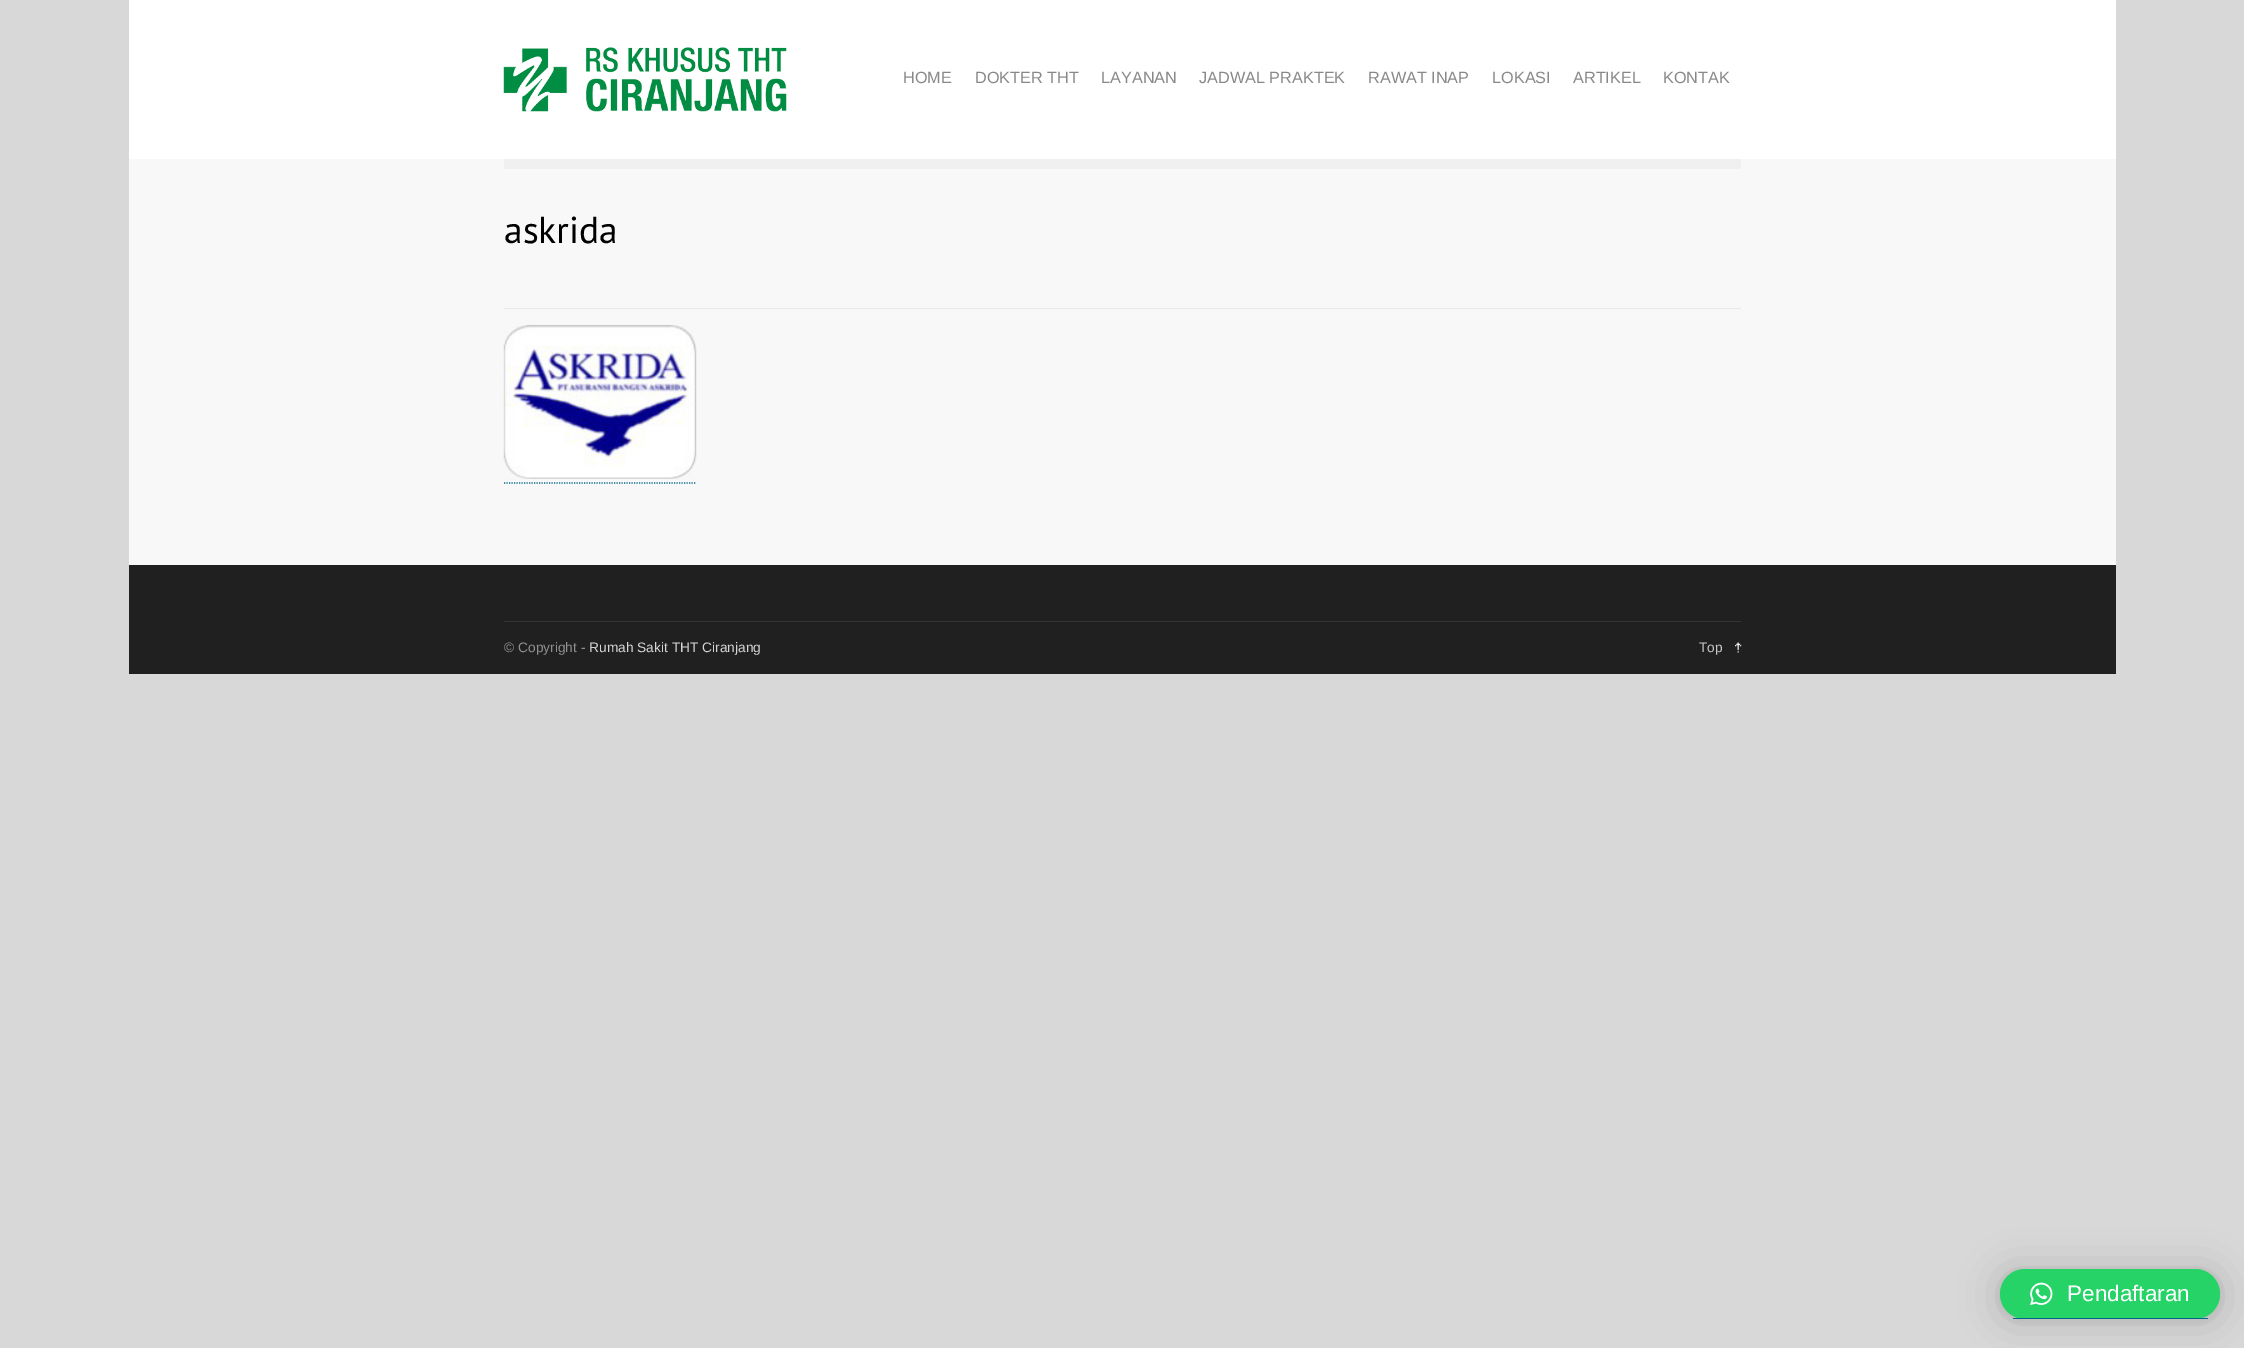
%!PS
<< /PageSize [2244 1348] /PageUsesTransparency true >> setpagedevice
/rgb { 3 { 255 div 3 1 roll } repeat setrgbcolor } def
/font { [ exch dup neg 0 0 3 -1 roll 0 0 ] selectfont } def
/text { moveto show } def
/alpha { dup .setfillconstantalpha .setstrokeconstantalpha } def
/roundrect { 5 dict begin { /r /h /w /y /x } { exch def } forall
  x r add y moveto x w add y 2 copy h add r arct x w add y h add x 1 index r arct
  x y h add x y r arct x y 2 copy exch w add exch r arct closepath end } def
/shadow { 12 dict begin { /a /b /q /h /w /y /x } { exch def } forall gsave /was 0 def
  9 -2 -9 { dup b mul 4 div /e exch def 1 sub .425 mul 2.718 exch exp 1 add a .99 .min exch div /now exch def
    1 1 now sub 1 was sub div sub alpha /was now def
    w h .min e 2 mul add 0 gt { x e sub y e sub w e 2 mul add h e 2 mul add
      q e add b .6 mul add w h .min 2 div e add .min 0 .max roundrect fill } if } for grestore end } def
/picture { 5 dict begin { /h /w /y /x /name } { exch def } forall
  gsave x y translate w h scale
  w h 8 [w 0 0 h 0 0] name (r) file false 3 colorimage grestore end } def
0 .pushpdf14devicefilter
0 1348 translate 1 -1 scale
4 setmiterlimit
216 216 216 rgb
0 0 2244 1348 rectfill
248 248 248 rgb
129 159 1987 406 rectfill
255 255 255 rgb
129 0 1987 159 rectfill
(img_01.rgb) 503 47 284 65 picture
240 240 240 rgb
504 159 1237 10 rectfill
232 232 232 rgb
504 308 1237 1 rectfill
(img_02.rgb) 503 325 194 154 picture
0 102 136 rgb
1.2 setlinewidth
[1.25 1.25] 0 setdash
504 483 moveto 192 0 rlineto stroke
32 32 32 rgb
129 565 1987 109 rectfill
53 53 53 rgb
504 621 1237 1 rectfill
(img_03.rgb) 1735 642 7 11 picture
0 0 0 rgb
2000 1271 220 50 25 20 0.16 shadow
2000 1270 220 50 25 4 0.06 shadow
37 211 102 rgb
2000 1269 220 50 25 roundrect fill
0 102 136 rgb
2013 1318 195 1 rectfill
(img_04.rgb) 2030 1282 23 24 picture
/LiberationSans-Regular 16.25 font
136 136 136 rgb
(HOME) 903 83 text
(DOKTER THT) 975 83 text
(LAYANAN) 1101 83 text
(JADWAL PRAKTEK) 1199 83 text
(RAWAT INAP) 1368 83 text
(LOKASI) 1492 83 text
(ARTIKEL) 1573 83 text
(KONTAK) 1663 83 text
/PTSans-Regular 37.5 font
0 0 0 rgb
(askrida) 504 243 text
/LiberationSans-Regular 13.75 font
144 144 144 rgb
(© Copyright -) 504 652 text
213 213 213 rgb
(Rumah Sakit THT Ciranjang) 589 652 text
197 197 197 rgb
(Top) 1699 652 text
/LiberationSans-Regular 22.5 font
255 255 255 rgb
(Pendaftaran) 2067 1301 text
.poppdf14devicefilter showpage
